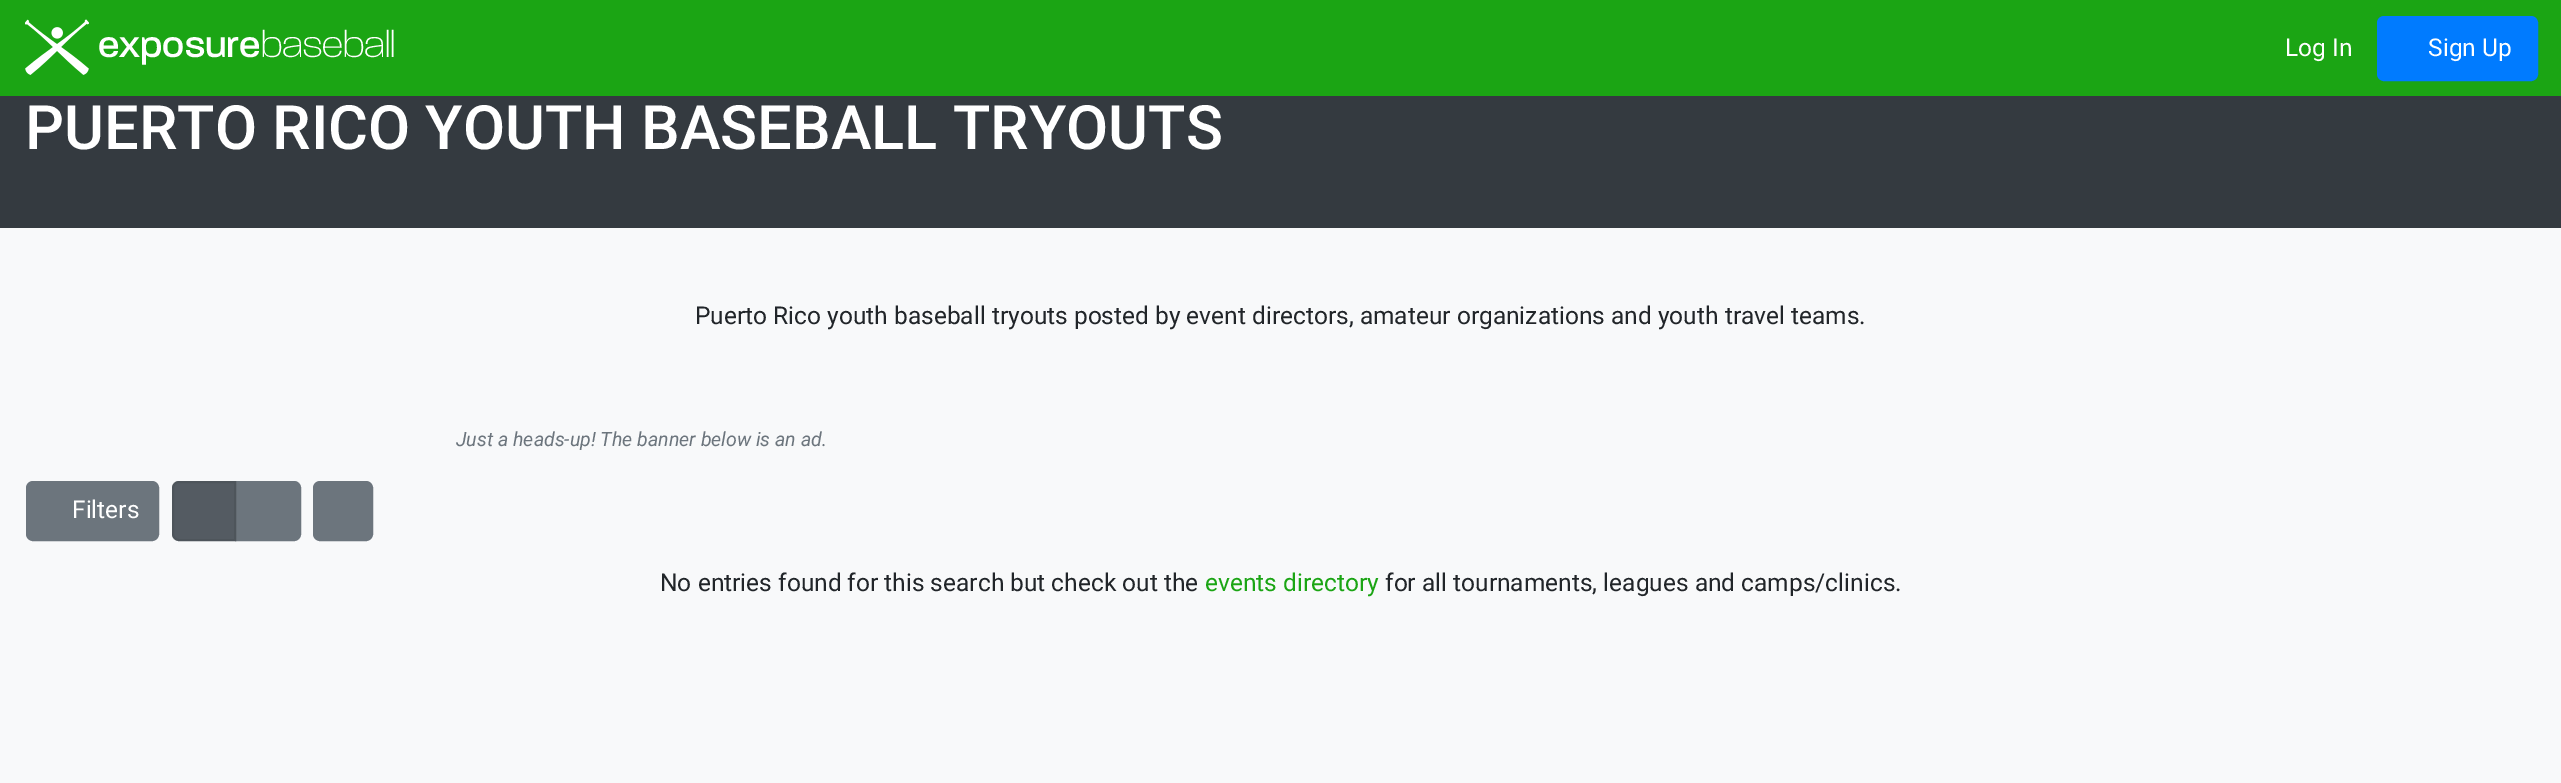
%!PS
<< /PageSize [2561 783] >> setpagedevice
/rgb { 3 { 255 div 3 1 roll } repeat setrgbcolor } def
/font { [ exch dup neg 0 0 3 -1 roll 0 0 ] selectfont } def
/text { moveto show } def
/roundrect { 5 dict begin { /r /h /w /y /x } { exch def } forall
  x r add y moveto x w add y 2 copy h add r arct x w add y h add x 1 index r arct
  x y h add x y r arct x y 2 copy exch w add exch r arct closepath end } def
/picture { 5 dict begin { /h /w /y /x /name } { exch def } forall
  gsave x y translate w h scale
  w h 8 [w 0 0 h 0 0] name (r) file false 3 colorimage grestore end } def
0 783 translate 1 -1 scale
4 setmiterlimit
248 249 250 rgb
0 0 2561 783 rectfill
27 165 20 rgb
0 0 2561 96 rectfill
(img_01.rgb) 25 19 64 56 picture
0 123 255 rgb
2378 17 159 63 6 roundrect gsave fill grestore
2 setlinewidth
stroke
52 58 64 rgb
0 96 2561 132 rectfill
108 117 125 rgb
27 482 131 58 6 roundrect gsave fill grestore
stroke
236 482 moveto 58 0 rlineto 3.5 0 6 2.5 6 6 rcurveto 0 46 rlineto 0 3.5 -2.5 6 -6 6 rcurveto -58 0 rlineto closepath gsave fill grestore
stroke
84 91 98 rgb
179 482 moveto 56 0 rlineto 0 58 rlineto -56 0 rlineto -3.5 0 -6 -2.5 -6 -6 rcurveto 0 -46 rlineto 0 -3.5 2.5 -6 6 -6 rcurveto closepath gsave fill grestore
78 85 91 rgb
stroke
108 117 125 rgb
314 482 58 58 6 roundrect gsave fill grestore
stroke
/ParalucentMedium-Medium 38.5 font
255 255 255 rgb
(exposure) 98 57 text
/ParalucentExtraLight-ExtraLight 38.5 font
(baseball) 261 57 text
/Roboto-Regular 24.5 font
(Log In) 2285 56 text
(Sign Up) 2428 56 text
/Roboto-Medium 61.25 font
(PUERTO RICO YOUTH BASEBALL TRYOUTS) 25 149 text
/Roboto-Regular 24.5 font
33 37 41 rgb
(Puerto Rico youth baseball tryouts posted by event directors, amateur organizations and youth travel teams.) 695 324 text
/Roboto-Italic 19.6 font
108 117 125 rgb
(Just a heads-up! The banner below is an ad.) 456 446 text
/Roboto-Regular 24.5 font
255 255 255 rgb
(Filters) 72 518 text
33 37 41 rgb
(No entries found for this search but check out the) 660 591 text
27 165 20 rgb
(events directory) 1205 591 text
33 37 41 rgb
(for all tournaments, leagues and camps/clinics.) 1385 591 text
showpage
